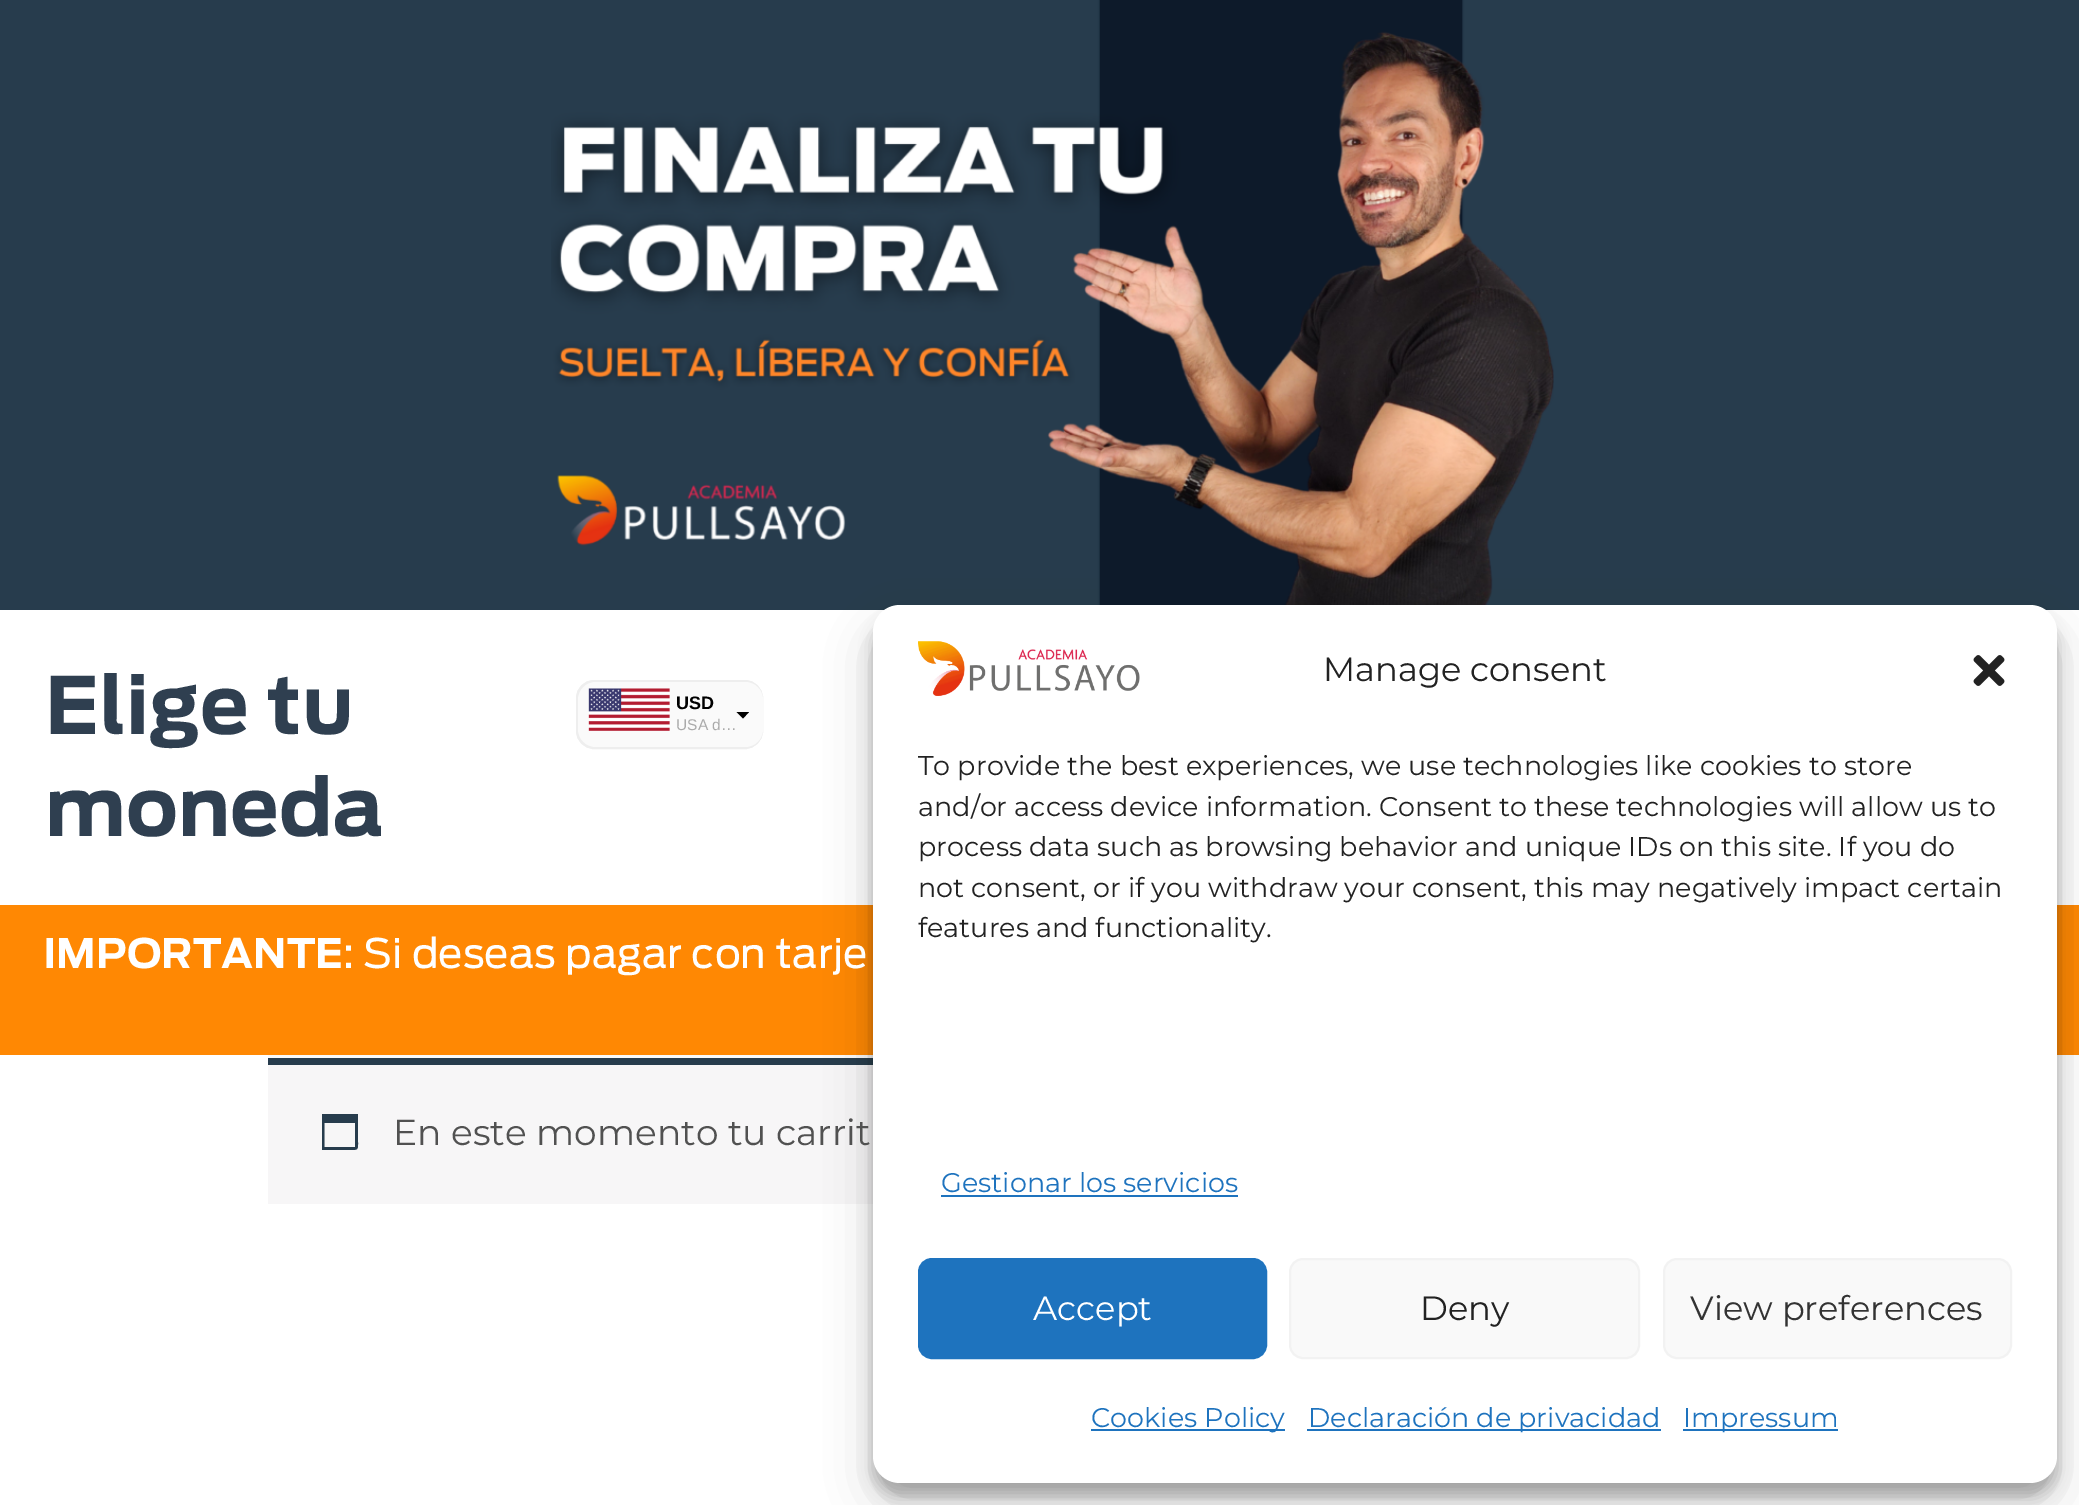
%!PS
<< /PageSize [2079 1505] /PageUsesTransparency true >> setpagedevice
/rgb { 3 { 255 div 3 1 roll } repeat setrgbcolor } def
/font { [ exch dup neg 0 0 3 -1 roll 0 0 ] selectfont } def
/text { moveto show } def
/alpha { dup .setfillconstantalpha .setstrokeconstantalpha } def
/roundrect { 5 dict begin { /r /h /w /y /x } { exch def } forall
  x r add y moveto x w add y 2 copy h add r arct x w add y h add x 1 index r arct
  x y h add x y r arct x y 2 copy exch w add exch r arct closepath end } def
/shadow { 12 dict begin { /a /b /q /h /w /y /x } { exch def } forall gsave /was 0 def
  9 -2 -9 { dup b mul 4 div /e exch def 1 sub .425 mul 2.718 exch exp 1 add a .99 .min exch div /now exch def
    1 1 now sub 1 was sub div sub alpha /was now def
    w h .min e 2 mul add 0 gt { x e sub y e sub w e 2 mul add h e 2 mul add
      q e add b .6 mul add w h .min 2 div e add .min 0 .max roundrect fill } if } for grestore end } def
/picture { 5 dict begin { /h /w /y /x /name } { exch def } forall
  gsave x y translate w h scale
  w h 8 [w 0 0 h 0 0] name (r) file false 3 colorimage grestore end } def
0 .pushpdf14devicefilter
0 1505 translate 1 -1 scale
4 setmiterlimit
255 255 255 rgb
0 0 2079 1505 rectfill
39 60 77 rgb
0 0 2079 610 rectfill
(img_01.rgb) 551 0 1003 610 picture
238 238 238 rgb
576.5 680.5 186 68 17.5 roundrect gsave fill grestore
stroke
250 250 250 rgb
578 682 185 65 18 roundrect fill
(img_02.rgb) 588 688 82 43 picture
0 0 0 rgb
736.5 712 moveto 12.5 0 rlineto -6 6.5 rlineto closepath fill
255 136 3 rgb
0 905 2079 150 rectfill
250 250 250 rgb
268 1055 605 3 rectfill
247 246 247 rgb
268 1065 605 139 rectfill
39 60 77 rgb
268 1058 605 7 rectfill
355 1123 moveto -30.5 0 rlineto 0 24 rlineto 30.5 0 rlineto closepath 358 1114 moveto 0 27.5 rlineto 0 8.5 0.5 8.5 -8.5 8.5 rcurveto -27.5 0 rlineto 0 -36 rlineto closepath fill
0 0 0 rgb
873 619 1184 877 27 7 0.23 shadow
873 628 1184 877 27 22.5 0.19 shadow
255 255 255 rgb
873 605 1184 878 27 roundrect fill
(img_03.rgb) 918 641 222 55 picture
(img_04.rgb) 1973 655 32 31 picture
30 115 190 rgb
941 1195 297 2 rectfill
919 1259 347 99 13 roundrect gsave fill grestore
2 setlinewidth
stroke
249 249 249 rgb
1290 1259 349 99 13 roundrect gsave fill grestore
242 242 242 rgb
stroke
249 249 249 rgb
1664 1259 347 99 13 roundrect gsave fill grestore
242 242 242 rgb
stroke
30 115 190 rgb
1091 1429 194 2 rectfill
1307 1429 354 2 rectfill
1683 1429 155 2 rectfill
/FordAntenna-Bold 78.75 font
47 63 80 rgb
(Elige tu) 45 734 text
(moneda) 45 836 text
/LiberationSans-Bold 18 font
0 0 0 rgb
(USD) 676 709 text
/LiberationSans-Regular 15.5 font
170 170 170 rgb
(USA d…) 676 730 text
/FordAntenna-Bold 40.5 font
255 255 255 rgb
(IMPORTANTE) 43 968 text
/FordAntenna-Regular 40.5 font
(: Si deseas pagar con tarje) 343 968 text
/Montserrat-Regular 36 font
81 81 81 rgb
(En este momento tu carrit) 393 1145 text
/Montserrat-Regular 33.75 font
34 34 34 rgb
(Manage consent) 1323 681 text
/Montserrat-Regular 27 font
(To provide the best experiences, we use technologies like cookies to store) 918 775 text
(and/or access device information. Consent to these technologies will allow us to) 918 816 text
(process data such as browsing behavior and unique IDs on this site. If you do) 918 856 text
(not consent, or if you withdraw your consent, this may negatively impact certain) 918 897 text
(features and functionality.) 918 937 text
30 115 190 rgb
(Gestionar los servicios) 941 1192 text
/Montserrat-Regular 33.75 font
255 255 255 rgb
(Accept) 1033 1320 text
34 34 34 rgb
(Deny) 1420 1320 text
51 51 51 rgb
(View preferences) 1690 1320 text
/Montserrat-Regular 27 font
30 115 190 rgb
(Cookies Policy) 1091 1427 text
(Declaración de privacidad) 1308 1427 text
(Impressum) 1683 1427 text
.poppdf14devicefilter showpage
